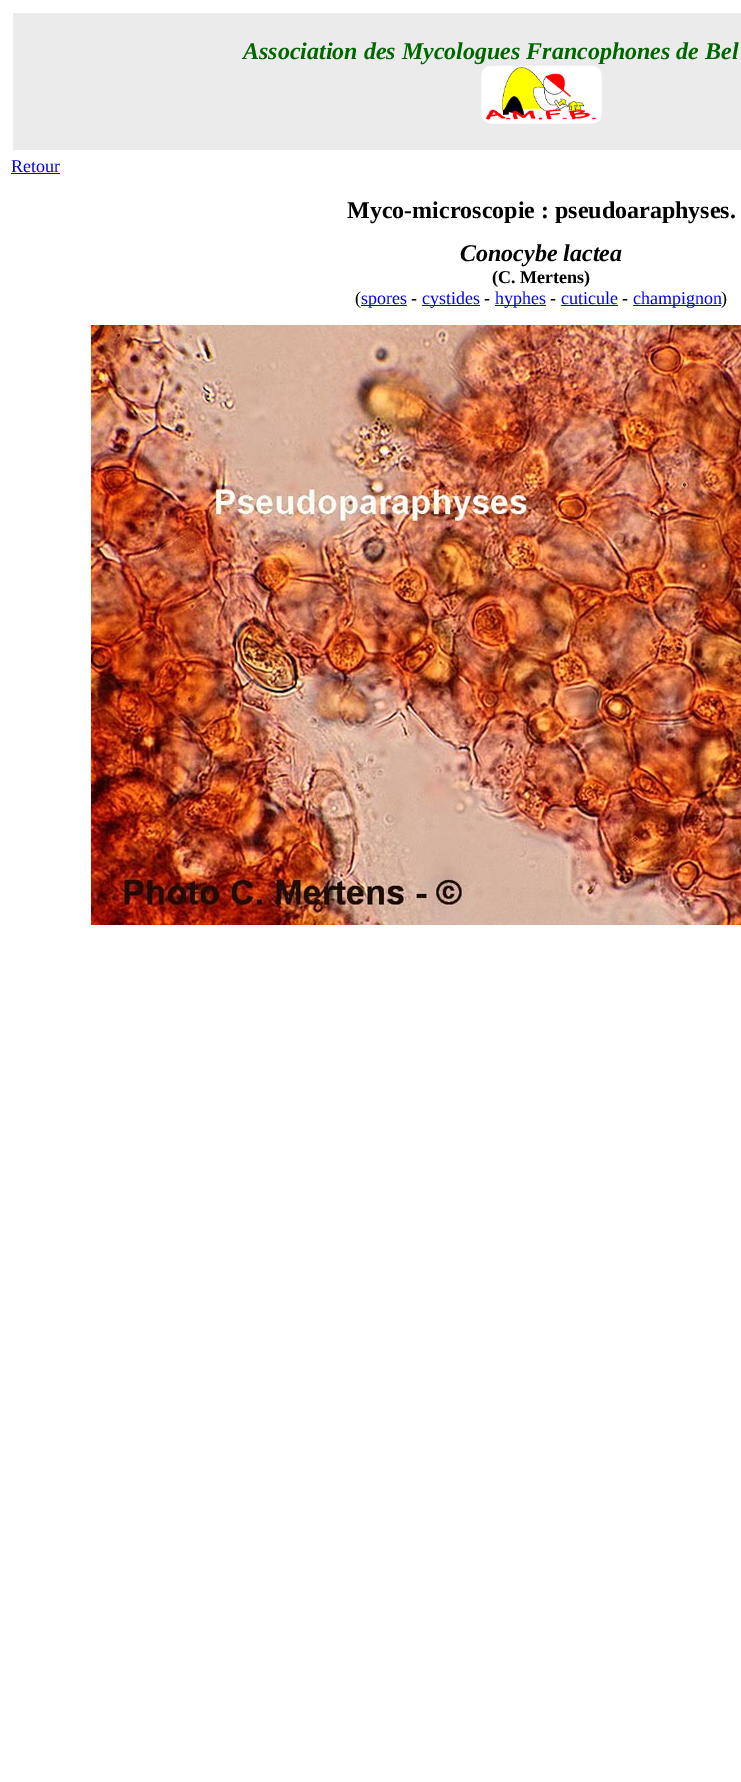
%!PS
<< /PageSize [741 1782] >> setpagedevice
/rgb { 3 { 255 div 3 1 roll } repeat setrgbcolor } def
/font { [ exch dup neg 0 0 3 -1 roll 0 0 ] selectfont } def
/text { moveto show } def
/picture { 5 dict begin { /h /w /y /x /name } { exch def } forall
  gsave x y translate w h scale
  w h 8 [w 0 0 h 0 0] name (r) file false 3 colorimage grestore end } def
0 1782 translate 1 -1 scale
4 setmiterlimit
255 255 255 rgb
0 0 741 1782 rectfill
235 235 235 rgb
13 13 728 137 rectfill
(img_01.rgb) 481 65 121 59 picture
0 0 238 rgb
11 173 49 1 rectfill
361 305 46 1 rectfill
422 305 58 1 rectfill
495 305 51 1 rectfill
561 305 57 1 rectfill
633 305 88 1 rectfill
(img_02.rgb) 91 325 650 600 picture
/LiberationSerif-BoldItalic 24 font
0 102 0 rgb
(Association des Mycologues Francophones de Bel) 243 59 text
/LiberationSerif-Regular 18 font
0 0 238 rgb
(Retour) 11 172 text
/LiberationSerif-Bold 24 font
0 0 0 rgb
(Myco-microscopie : pseudoaraphyses.) 347 218 text
/LiberationSerif-BoldItalic 24 font
(Conocybe lactea) 460 261 text
/LiberationSerif-Bold 18 font
(\(C. Mertens\)) 492 283 text
/LiberationSerif-Regular 18 font
(\() 355 304 text
0 0 238 rgb
(spores) 361 304 text
0 0 0 rgb
(-) 411 304 text
0 0 238 rgb
(cystides) 422 304 text
0 0 0 rgb
(-) 484 304 text
0 0 238 rgb
(hyphes) 495 304 text
0 0 0 rgb
(-) 550 304 text
0 0 238 rgb
(cuticule) 561 304 text
0 0 0 rgb
(-) 622 304 text
0 0 238 rgb
(champignon) 633 304 text
0 0 0 rgb
(\)) 721 304 text
showpage
